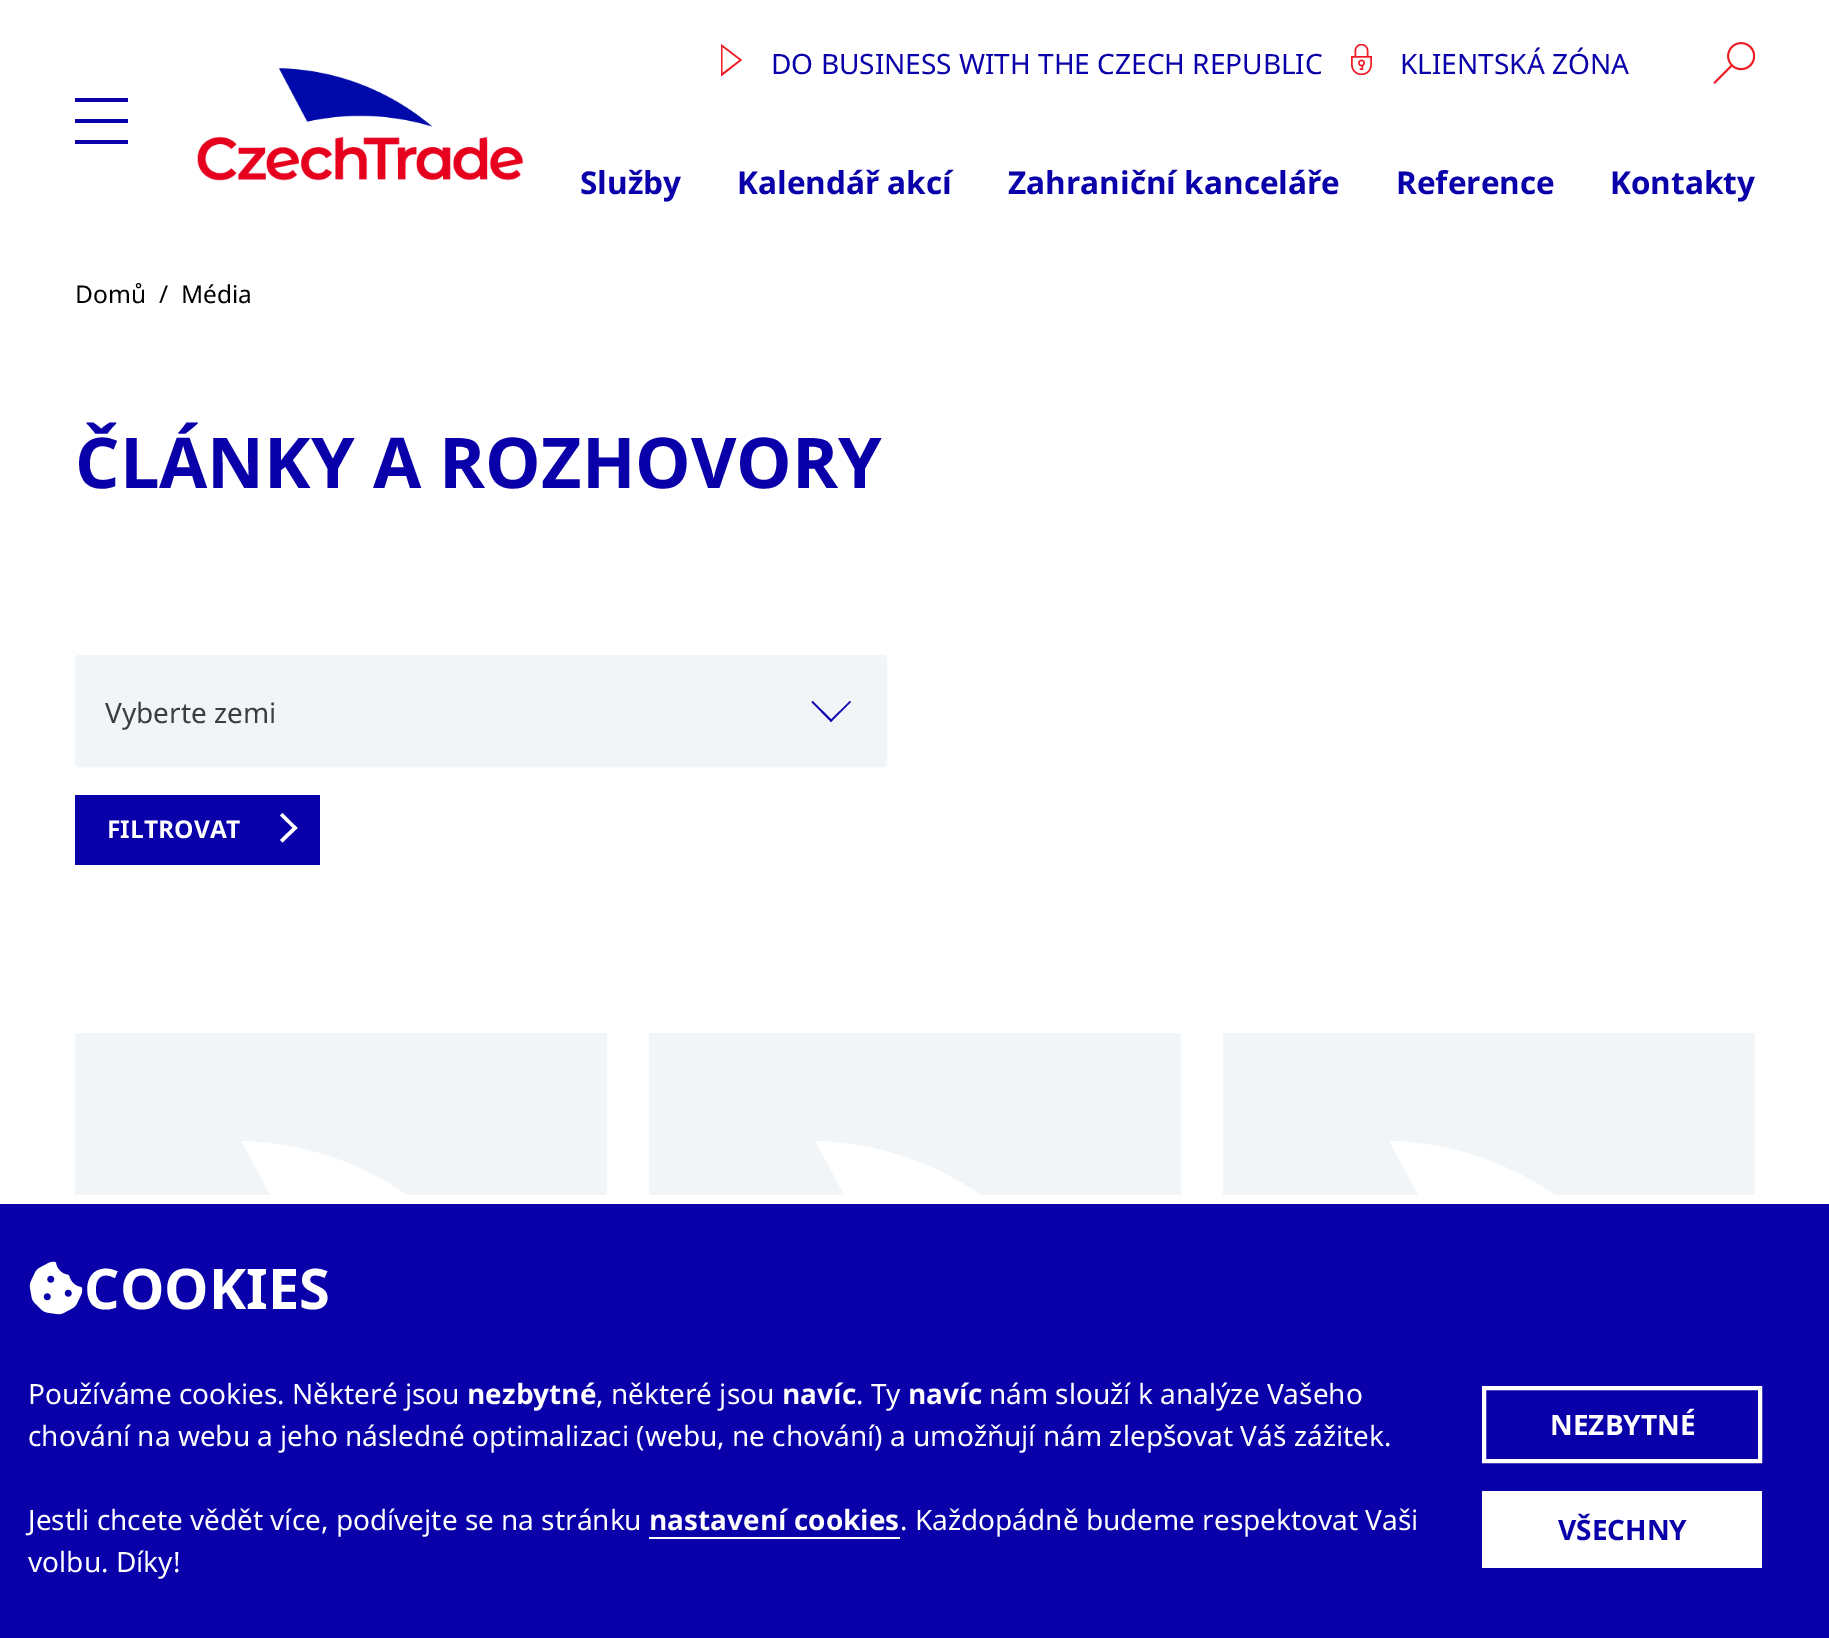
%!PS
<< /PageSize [1829 1638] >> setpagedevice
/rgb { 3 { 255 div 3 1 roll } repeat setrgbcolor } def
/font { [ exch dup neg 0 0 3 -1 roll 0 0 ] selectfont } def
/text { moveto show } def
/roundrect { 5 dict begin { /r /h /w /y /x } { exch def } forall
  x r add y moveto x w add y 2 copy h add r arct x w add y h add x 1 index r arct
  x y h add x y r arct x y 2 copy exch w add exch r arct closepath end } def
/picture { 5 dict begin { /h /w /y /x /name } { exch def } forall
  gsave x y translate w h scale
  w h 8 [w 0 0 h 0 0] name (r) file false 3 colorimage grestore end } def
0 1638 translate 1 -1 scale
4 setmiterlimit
255 255 255 rgb
0 0 1829 1638 rectfill
9 0 169 rgb
75 119 53 4 rectfill
75 98 53 4 rectfill
75 140 53 4 rectfill
(img_01.rgb) 197 68 327 113 picture
237 28 36 rgb
721 76.5 moveto 0 -32.5 rlineto 21 16 rlineto closepath 722.5 47 moveto 0 26 rlineto 17 -13 rlineto closepath fill
(img_02.rgb) 1351 44 21 31 picture
(img_03.rgb) 1713 42 42 42 picture
241 245 248 rgb
76 656 810 110 3 roundrect gsave fill grestore
2 setlinewidth
stroke
9 0 169 rgb
851 702 moveto -20 20 rlineto -1 -1.5 rlineto 20 -19.5 rlineto closepath fill
832.5 720.5 moveto -1.5 1.5 rlineto -19.5 -20 rlineto 1 -1 rlineto closepath fill
75 795 245 70 rectfill
255 255 255 rgb
282.5 813 moveto 15 15 rlineto -2.5 2 rlineto -15 -14.5 rlineto closepath fill
295 825.5 moveto 2.5 2.5 rlineto -15 14.5 rlineto -2.5 -2.5 rlineto closepath fill
241 245 248 rgb
75 1033 532 162 rectfill
(img_04.rgb) 241 1141 167 54 picture
649 1033 532 162 rectfill
(img_05.rgb) 815 1141 167 54 picture
1223 1033 532 162 rectfill
(img_05.rgb) 1389 1141 167 54 picture
9 0 169 rgb
0 1204 1829 434 rectfill
(img_06.rgb) 29 1261 54 54 picture
255 255 255 rgb
649 1537 251 2 rectfill
4 setlinewidth
1484 1388 276 73 rectstroke
1482 1491 280 77 rectfill
/NotoSans-Regular 28 font
9 0 169 rgb
(DO BUSINESS WITH THE CZECH REPUBLIC) 771 74 text
(KLIENTSKÁ ZÓNA) 1400 74 text
/NotoSans-Bold 31.5 font
(Služby) 580 194 text
(Kalendář akcí) 737 194 text
(Zahraniční kanceláře) 1008 194 text
(Reference) 1396 194 text
(Kontakty) 1610 194 text
/NotoSans-Regular 24.5 font
0 0 0 rgb
(Domů) 75 303 text
(/) 159 303 text
(Média) 181 303 text
/NotoSans-Bold 70 font
9 0 169 rgb
(ČLÁNKY A ROZHOVORY) 75 488 text
/NotoSans-Regular 28 font
60 61 62 rgb
(Vyberte zemi) 105 723 text
/NotoSans-Bold 24.5 font
255 255 255 rgb
(FILTROVAT) 107 838 text
/NotoSans-Bold 56 font
(COOKIES) 84 1309 text
/NotoSans-Regular 28 font
(Používáme cookies. Některé jsou) 28 1404 text
/NotoSans-Bold 28 font
(nezbytné) 467 1404 text
/NotoSans-Regular 28 font
(, některé jsou) 596 1404 text
/NotoSans-Bold 28 font
(navíc) 782 1404 text
/NotoSans-Regular 28 font
(. Ty) 856 1404 text
/NotoSans-Bold 28 font
(navíc) 908 1404 text
/NotoSans-Regular 28 font
(nám slouží k analýze Vašeho) 989 1404 text
(chování na webu a jeho následné optimalizaci \(webu, ne chování\) a umožňují nám zlepšovat Váš zážitek.) 28 1446 text
(Jestli chcete vědět více, podívejte se na stránku) 28 1530 text
/NotoSans-Bold 28 font
(nastavení cookies) 649 1530 text
/NotoSans-Regular 28 font
(. Každopádně budeme respektovat Vaši) 900 1530 text
(volbu. Díky!) 28 1572 text
/NotoSans-Bold 28 font
(NEZBYTNÉ) 1550 1435 text
9 0 169 rgb
(VŠECHNY) 1558 1540 text
showpage
